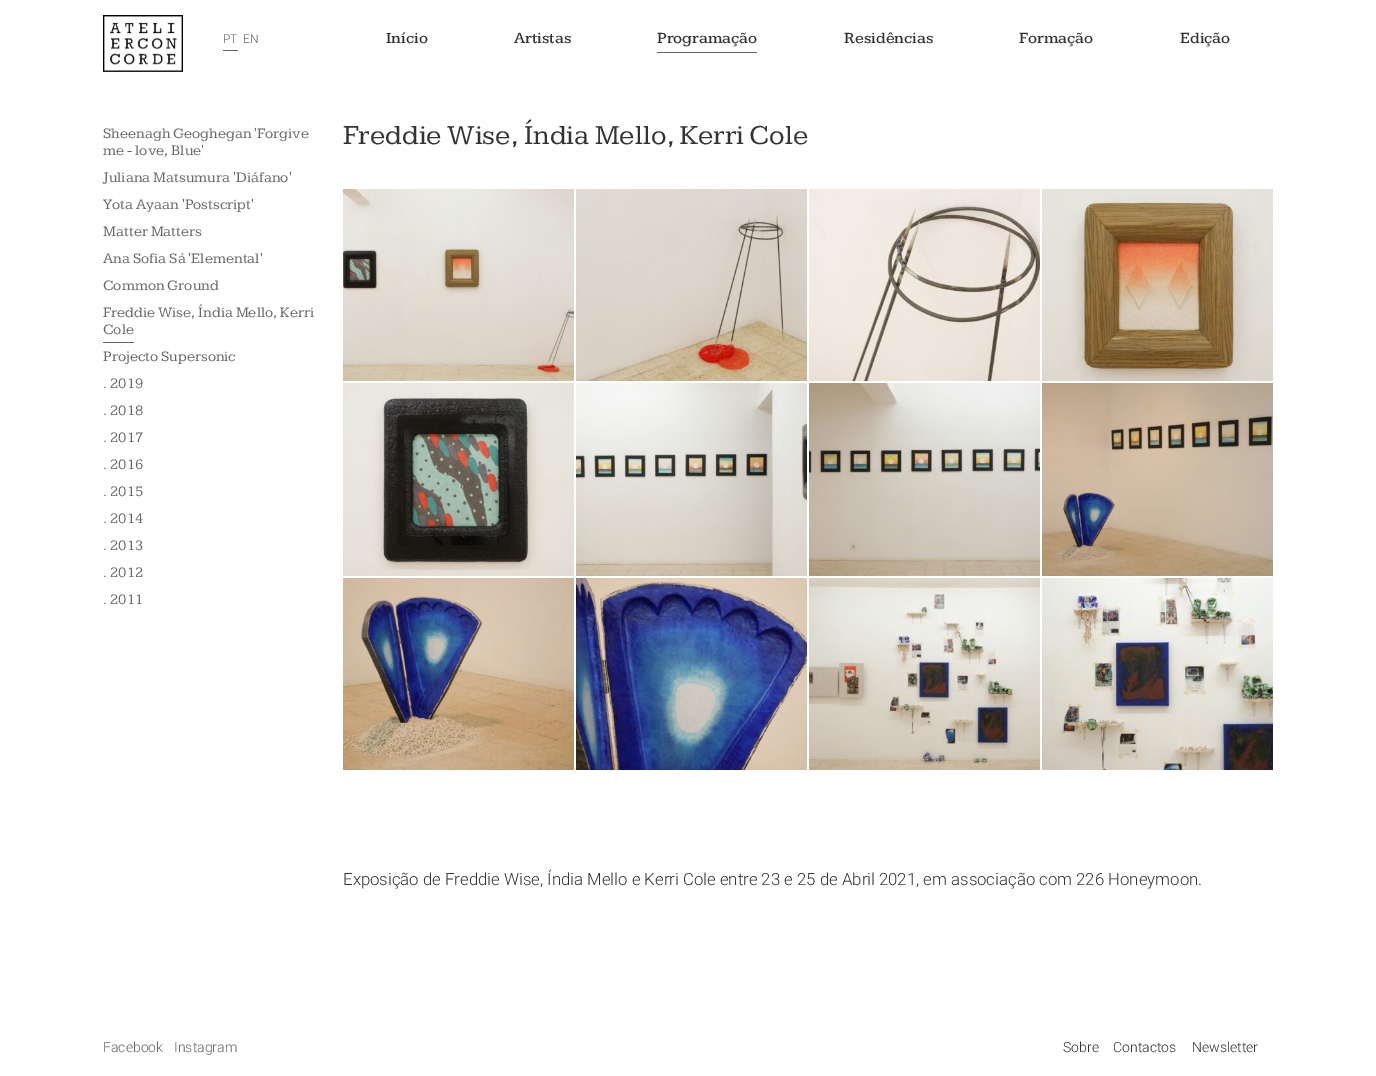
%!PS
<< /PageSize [1376 1076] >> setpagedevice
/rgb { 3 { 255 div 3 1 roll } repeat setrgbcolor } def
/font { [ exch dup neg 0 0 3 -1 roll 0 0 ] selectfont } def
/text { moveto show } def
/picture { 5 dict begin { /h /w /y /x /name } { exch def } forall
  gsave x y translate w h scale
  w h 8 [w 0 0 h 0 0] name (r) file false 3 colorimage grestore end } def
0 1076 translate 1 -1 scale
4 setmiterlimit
255 255 255 rgb
0 0 1376 1076 rectfill
(img_01.rgb) 103 15 80 57 picture
102 102 102 rgb
223 50 15 1 rectfill
657 52 100 1 rectfill
103 342 31 1 rectfill
(img_02.rgb) 343 189 231 192 picture
(img_03.rgb) 576 189 231 192 picture
(img_04.rgb) 809 189 231 192 picture
(img_05.rgb) 1042 189 231 192 picture
(img_06.rgb) 343 383 231 193 picture
(img_07.rgb) 576 383 231 193 picture
(img_08.rgb) 809 383 231 193 picture
(img_09.rgb) 1042 383 231 193 picture
(img_10.rgb) 343 578 231 192 picture
(img_11.rgb) 576 578 231 192 picture
(img_12.rgb) 809 578 231 192 picture
(img_13.rgb) 1042 578 231 192 picture
/Roboto-Light 12 font
(PT) 223 43 text
(EN) 243 43 text
/Kameron-Medium 16 font
51 51 51 rgb
(Início) 386 43 text
(Artistas) 514 43 text
(Programação) 657 43 text
(Residências) 844 43 text
(Formação) 1019 43 text
(Edição) 1180 43 text
/Kameron-Regular 15 font
102 102 102 rgb
(Sheenagh Geoghegan 'Forgive) 103 138 text
(me - love, Blue') 103 155 text
(Juliana Matsumura 'Diáfano') 103 182 text
(Yota Ayaan 'Postscript') 103 209 text
(Matter Matters) 103 236 text
(Ana Sofia Sá 'Elemental') 103 263 text
(Common Ground) 103 290 text
(Freddie Wise, Índia Mello, Kerri) 103 317 text
(Cole) 103 334 text
(Projecto Supersonic) 103 361 text
(. 2019) 103 388 text
(. 2018) 103 415 text
(. 2017) 103 442 text
(. 2016) 103 469 text
(. 2015) 103 496 text
(. 2014) 103 523 text
(. 2013) 103 550 text
(. 2012) 103 577 text
(. 2011) 103 604 text
/Kameron-Regular 28.5 font
51 51 51 rgb
(Freddie Wise, Índia Mello, Kerri Cole) 343 144 text
/Roboto-Light 16.8 font
(Exposição de Freddie Wise, Índia Mello e Kerri Cole entre 23 e 25 de Abril 2021, em associação com 226 Honeymoon.) 343 885 text
/Roboto-Light 14 font
102 102 102 rgb
(Facebook) 103 1052 text
(Instagram) 174 1052 text
51 51 51 rgb
(Sobre) 1063 1052 text
(Contactos) 1113 1052 text
(Newsletter) 1192 1052 text
showpage
